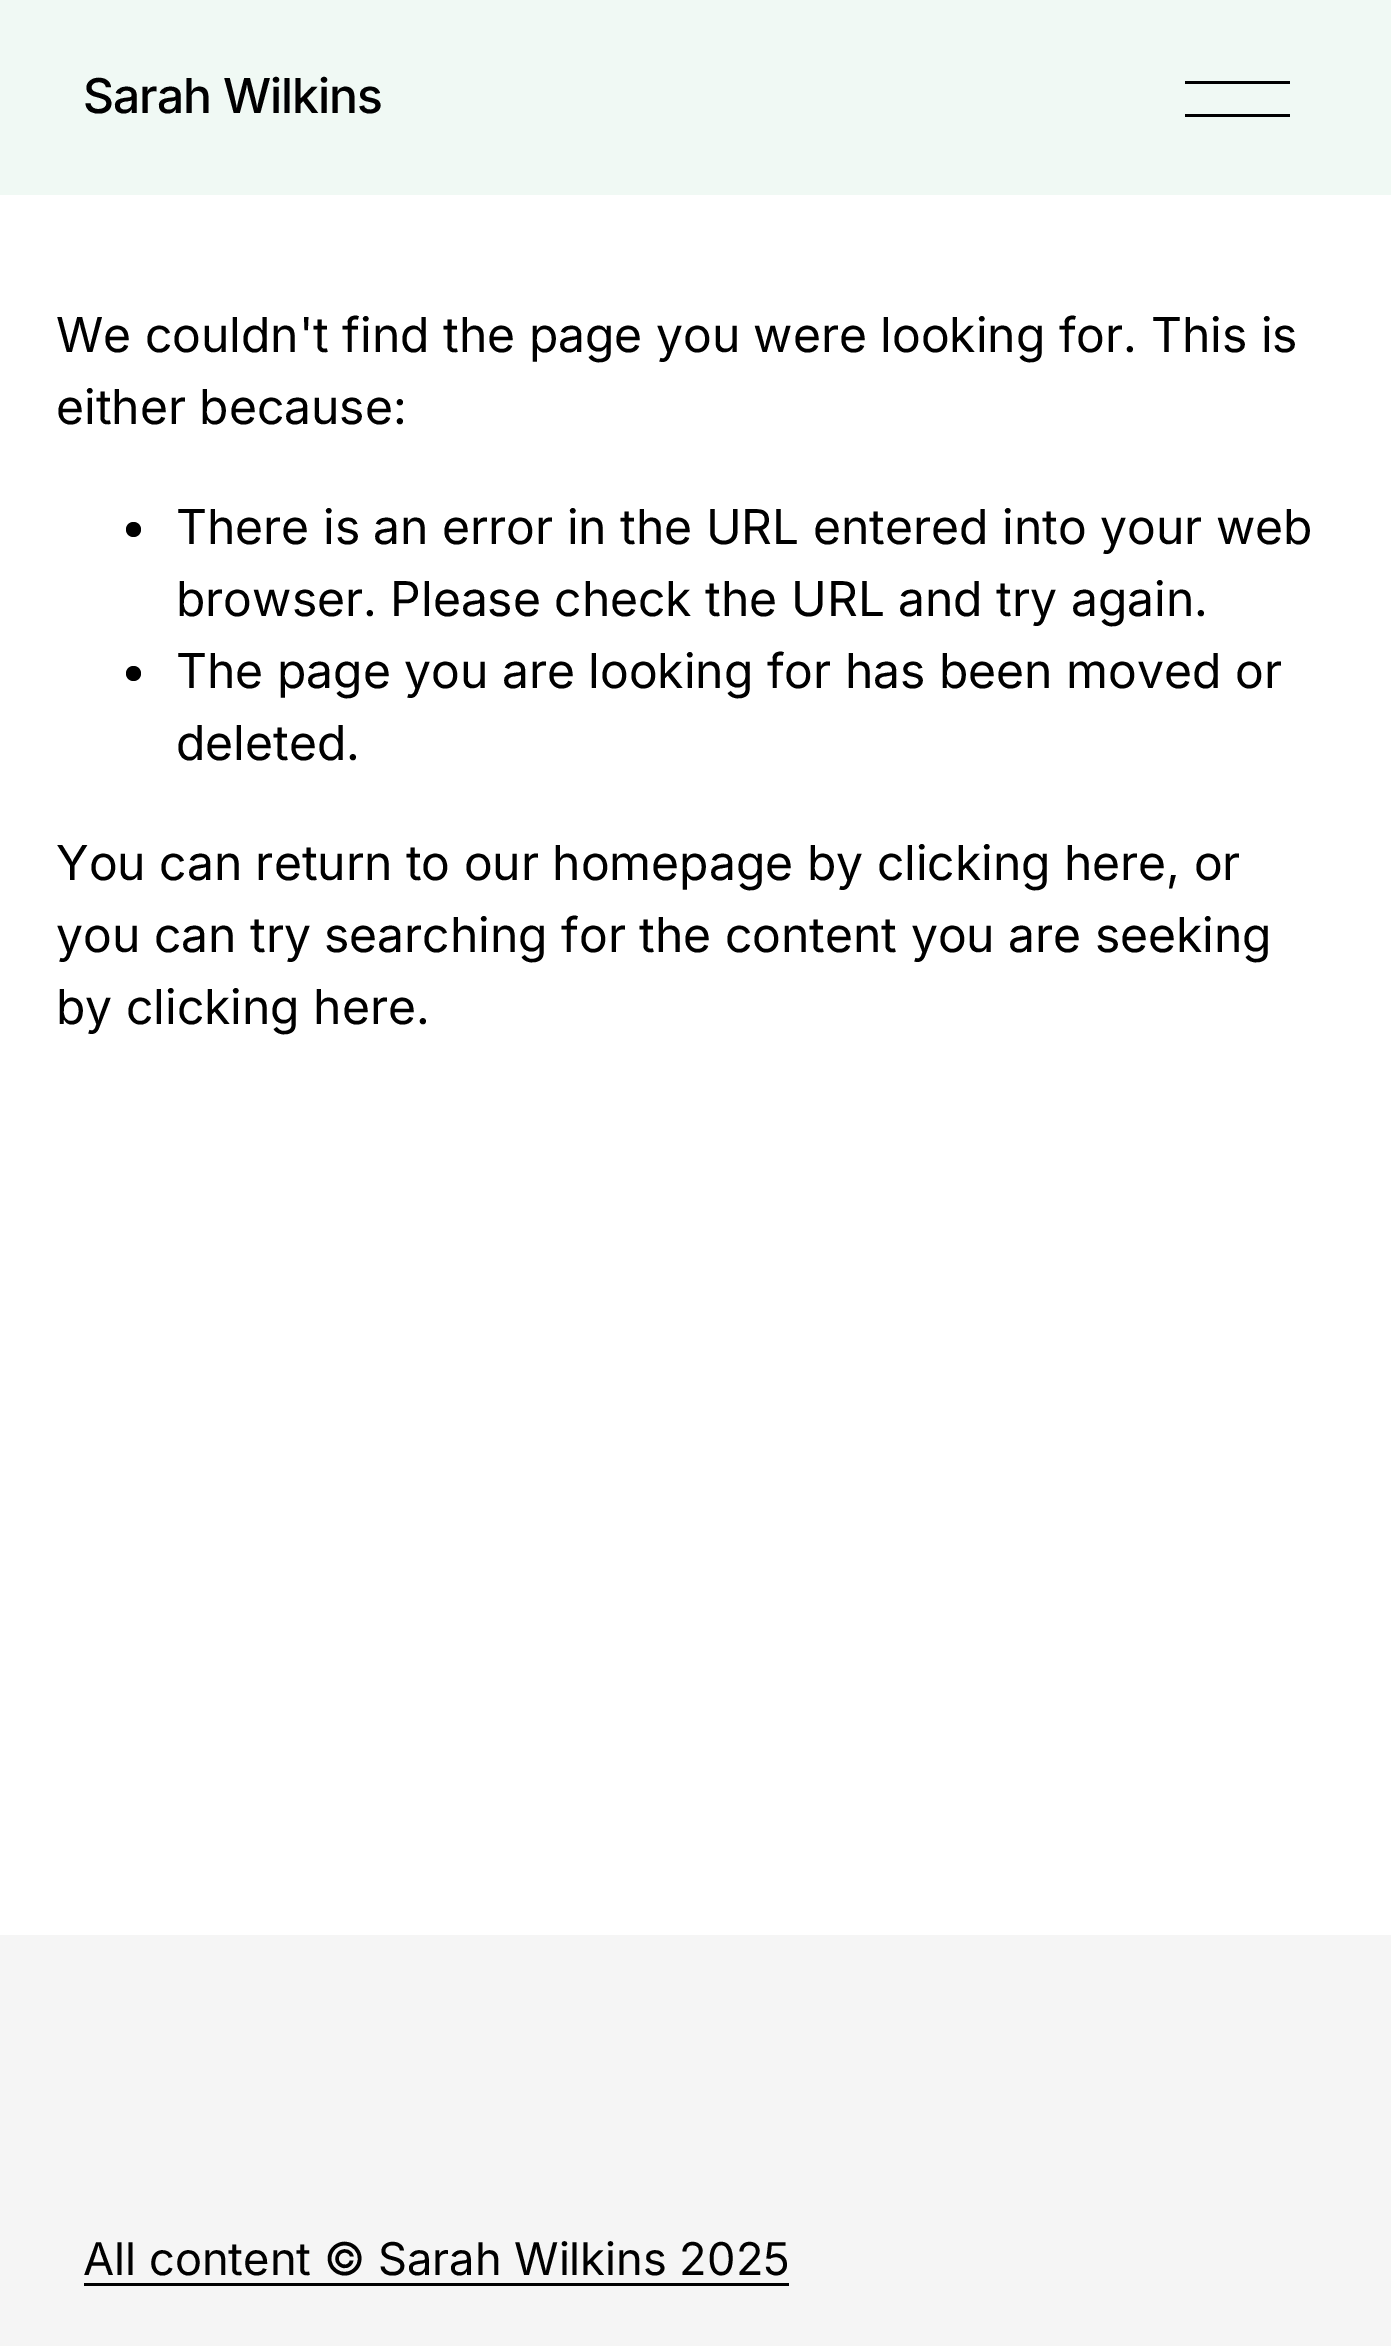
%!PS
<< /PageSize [1391 2346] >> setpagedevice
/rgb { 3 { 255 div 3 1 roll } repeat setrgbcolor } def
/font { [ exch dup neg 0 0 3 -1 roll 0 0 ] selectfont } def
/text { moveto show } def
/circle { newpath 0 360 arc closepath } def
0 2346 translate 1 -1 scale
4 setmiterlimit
255 255 255 rgb
0 0 1391 2346 rectfill
240 249 244 rgb
0 0 1391 195 rectfill
0 0 0 rgb
1185 81 105 3 rectfill
1185 114 105 3 rectfill
133.5 529.5 7.5 circle fill
133.5 673.5 7.5 circle fill
245 245 245 rgb
0 1935 1391 411 rectfill
0 0 0 rgb
84 2283 705 3 rectfill
/Inter-Medium 48 font
83 113 moveto -1 0 (Sarah Wilkins) ashow
/Inter-Regular 48 font
(We couldn't find the page you were looking for. This is) 56 352 text
(either because:) 56 424 text
(There is an error in the URL entered into your web) 176 544 text
(browser. Please check the URL and try again.) 176 616 text
(The page you are looking for has been moved or) 176 688 text
(deleted.) 176 760 text
(You can return to our homepage by clicking here, or) 56 880 text
(you can try searching for the content you are seeking) 56 952 text
(by clicking here.) 56 1024 text
/Inter-Regular 45.2 font
(All content © Sarah Wilkins 2025) 83 2275 text
showpage
